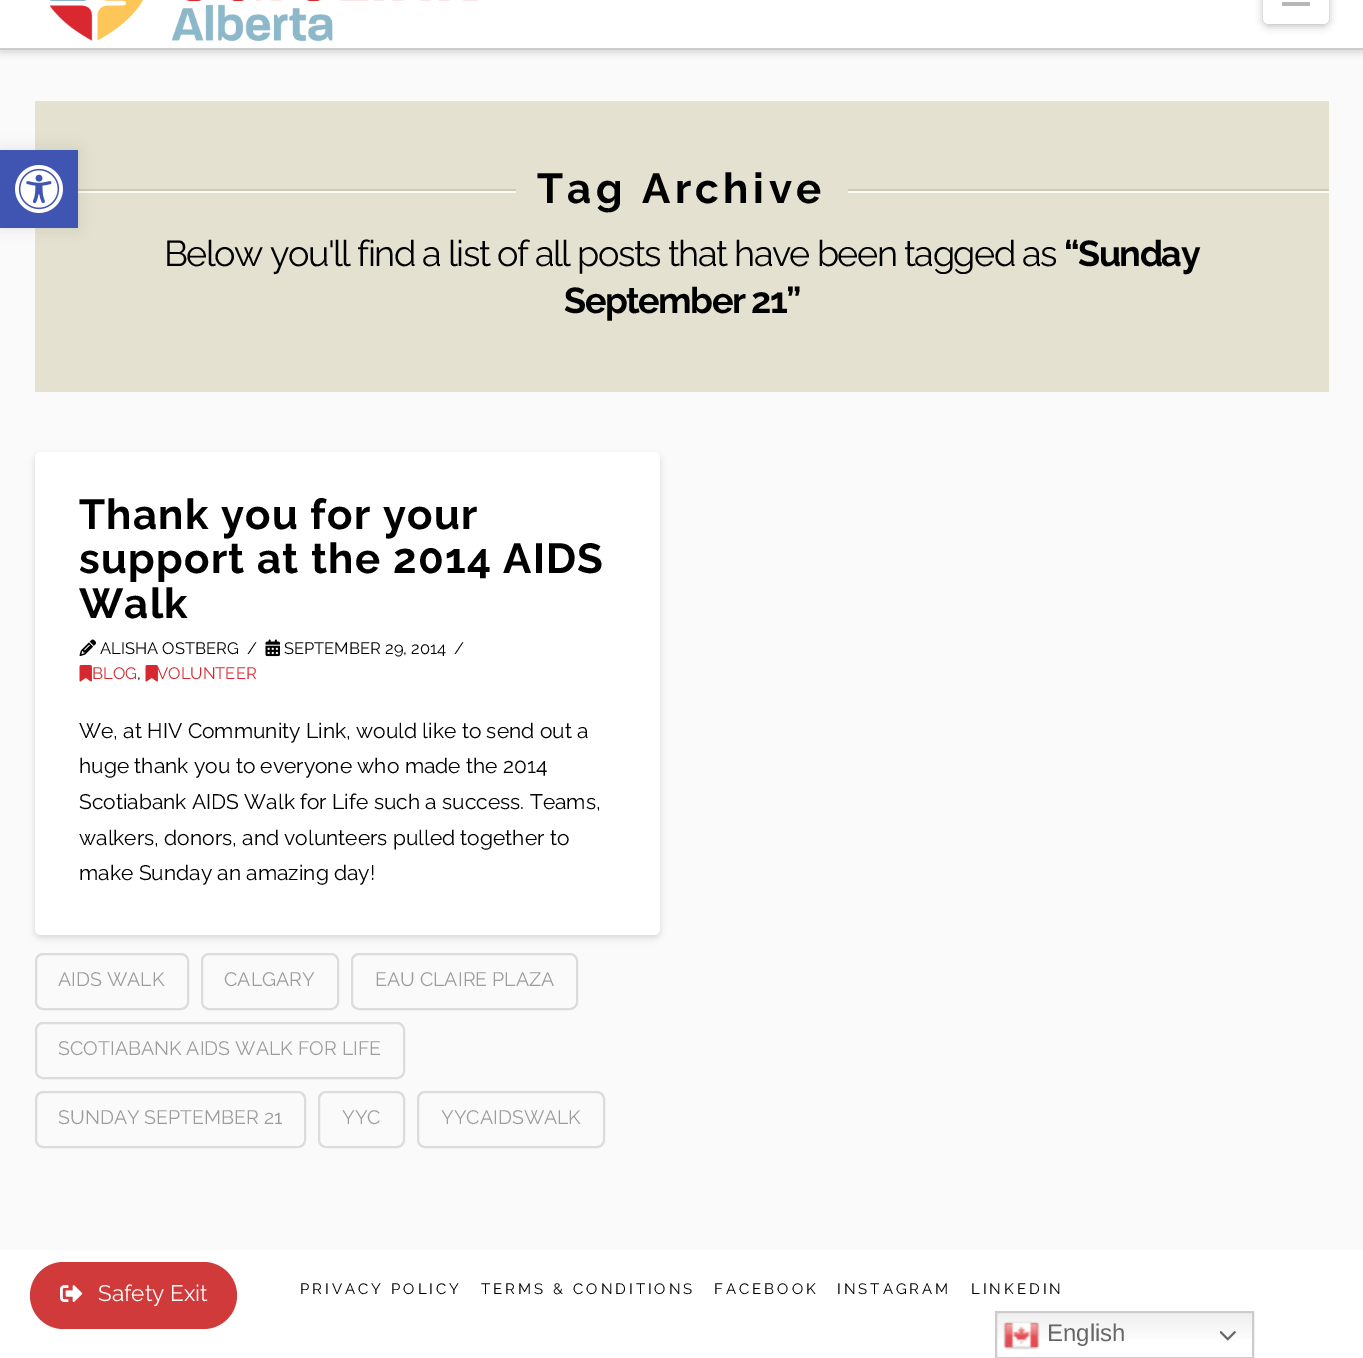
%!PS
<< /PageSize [1363 1358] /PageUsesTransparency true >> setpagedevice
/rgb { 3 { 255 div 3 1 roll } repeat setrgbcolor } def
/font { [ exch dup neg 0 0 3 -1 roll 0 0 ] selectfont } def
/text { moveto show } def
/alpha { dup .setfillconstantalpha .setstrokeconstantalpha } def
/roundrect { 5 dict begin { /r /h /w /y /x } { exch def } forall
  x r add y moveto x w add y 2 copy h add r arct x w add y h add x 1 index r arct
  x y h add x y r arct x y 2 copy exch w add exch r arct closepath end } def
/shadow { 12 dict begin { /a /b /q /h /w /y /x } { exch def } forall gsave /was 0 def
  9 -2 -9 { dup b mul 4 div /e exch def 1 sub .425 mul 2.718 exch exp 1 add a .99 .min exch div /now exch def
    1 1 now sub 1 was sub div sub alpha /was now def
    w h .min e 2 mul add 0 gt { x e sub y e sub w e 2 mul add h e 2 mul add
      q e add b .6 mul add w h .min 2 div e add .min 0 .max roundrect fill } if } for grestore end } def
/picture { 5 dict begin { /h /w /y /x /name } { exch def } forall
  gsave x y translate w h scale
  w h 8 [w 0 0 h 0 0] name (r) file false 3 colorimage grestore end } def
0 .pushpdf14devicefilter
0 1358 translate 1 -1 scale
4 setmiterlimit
250 250 250 rgb
0 0 1363 1358 rectfill
228 225 208 rgb
35 101 1294 291 rectfill
249 249 245 rgb
78 191 438 2 rectfill
205 203 187 rgb
78 189 438 2 rectfill
0 0 0 rgb
0 150 78 78 0 7.5 0.1 shadow
64 84 178 rgb
0 150 78 78 rectfill
(img_01.rgb) 15 165 48 48 picture
0 0 0 rgb
0 -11 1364 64 0 3.5 0.13 shadow
255 255 255 rgb
0 0 1363 48 rectfill
204 204 204 rgb
0 48 1363 2 rectfill
(img_02.rgb) 49 0 429 42 picture
0 0 0 rgb
1263 -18 66 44 6 4 0.25 shadow
255 255 255 rgb
1263 -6 66 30 6 roundrect fill
183 183 183 rgb
1282 2 28 4 rectfill
249 249 245 rgb
848 191 481 2 rectfill
205 203 187 rgb
848 189 481 2 rectfill
0 0 0 rgb
35 455 625 483 6 3.5 0.13 shadow
255 255 255 rgb
35 452 625 483 6 roundrect fill
(img_03.rgb) 79 639 17 18 picture
(img_04.rgb) 265 639 15 18 picture
(img_05.rgb) 79 665 13 17 picture
(img_05.rgb) 145 665 13 17 picture
0.12 alpha
0 0 0 rgb
2 setlinewidth
36 954 152 55 7 roundrect stroke
202 954 136 55 7 roundrect stroke
352 954 225 55 7 roundrect stroke
36 1023 368 55 7 roundrect stroke
36 1092 269 55 7 roundrect stroke
319 1092 85 55 7 roundrect stroke
418 1092 186 55 7 roundrect stroke
1 alpha
255 255 255 rgb
0 1250 1363 108 rectfill
208 58 58 rgb
30 1262 207 67 33.5 roundrect fill
(img_06.rgb) 60 1285 23 17 picture
gsave 997 1313 moveto 255 0 rlineto 0 26 rlineto -255 0 rlineto closepath clip newpath
<< /ShadingType 2 /ColorSpace /DeviceRGB /Coords [1124 1311 1124 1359] /Extend [true true] /Function << /FunctionType 3 /Domain [0 1] /Functions [<< /FunctionType 2 /Domain [0 1] /C0 [0.937 0.937 0.937] /C1 [1 1 1] /N 1 >> << /FunctionType 2 /Domain [0 1] /C0 [1 1 1] /C1 [1 1 1] /N 1 >>] /Bounds [0.7] /Encode [0 1 0 1] >> >> shfill grestore
204 204 204 rgb
996 1312 257 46 rectstroke
(img_07.rgb) 1003 1321 37 29 picture
(img_08.rgb) 1220 1331 16 10 picture
/Raleway-Bold 42 font
0 0 0 rgb
537 203 moveto 4.5 0 (Tag Archive) ashow
/Raleway-Regular 36 font
164 266 moveto -1.5 0 (Below you'll find a list of all posts that have been tagged as) ashow
/Raleway-Bold 36 font
1064 266 moveto -1.5 0 (“Sunday) ashow
564 313 moveto -1.5 0 (September 21”) ashow
/Raleway-Bold 42 font
79 529 moveto 1.25 0 (Thank you for your) ashow
79 573 moveto 1.25 0 (support at the 2014 AIDS) ashow
79 618 moveto 1.25 0 (Walk) ashow
/Raleway-Regular 16.5 font
(ALISHA OSTBERG) 100 654 text
(/) 247 654 text
(SEPTEMBER 29, 2014) 284 654 text
(/) 454 654 text
215 40 47 rgb
(BLOG) 92 679 text
0 0 0 rgb
(,) 137 679 text
215 40 47 rgb
(VOLUNTEER) 157 679 text
/Raleway-Regular 21 font
0 0 0 rgb
(We, at HIV Community Link, would like to send out a) 79 738 text
(huge thank you to everyone who made the 2014) 79 773 text
(Scotiabank AIDS Walk for Life such a success. Teams,) 79 809 text
(walkers, donors, and volunteers pulled together to) 79 845 text
(make Sunday an amazing day!) 79 880 text
/Raleway-Regular 19.5 font
156 156 156 rgb
(AIDS WALK) 58 986 text
(CALGARY) 224 986 text
(EAU CLAIRE PLAZA) 375 986 text
(SCOTIABANK AIDS WALK FOR LIFE) 58 1055 text
(SUNDAY SEPTEMBER 21) 58 1124 text
(YYC) 342 1124 text
(YYCAIDSWALK) 441 1124 text
/Raleway-Regular 15 font
0 0 0 rgb
300 1294 moveto 3 0 (PRIVACY POLICY) ashow
481 1294 moveto 3 0 (TERMS & CONDITIONS) ashow
714 1294 moveto 3 0 (FACEBOOK) ashow
837 1294 moveto 3 0 (INSTAGRAM) ashow
971 1294 moveto 3 0 (LINKEDIN) ashow
/Raleway-Regular 22.5 font
255 255 255 rgb
(Safety Exit) 98 1301 text
/LiberationSans-Regular 24 font
102 102 102 rgb
(English) 1047 1341 text
.poppdf14devicefilter showpage
